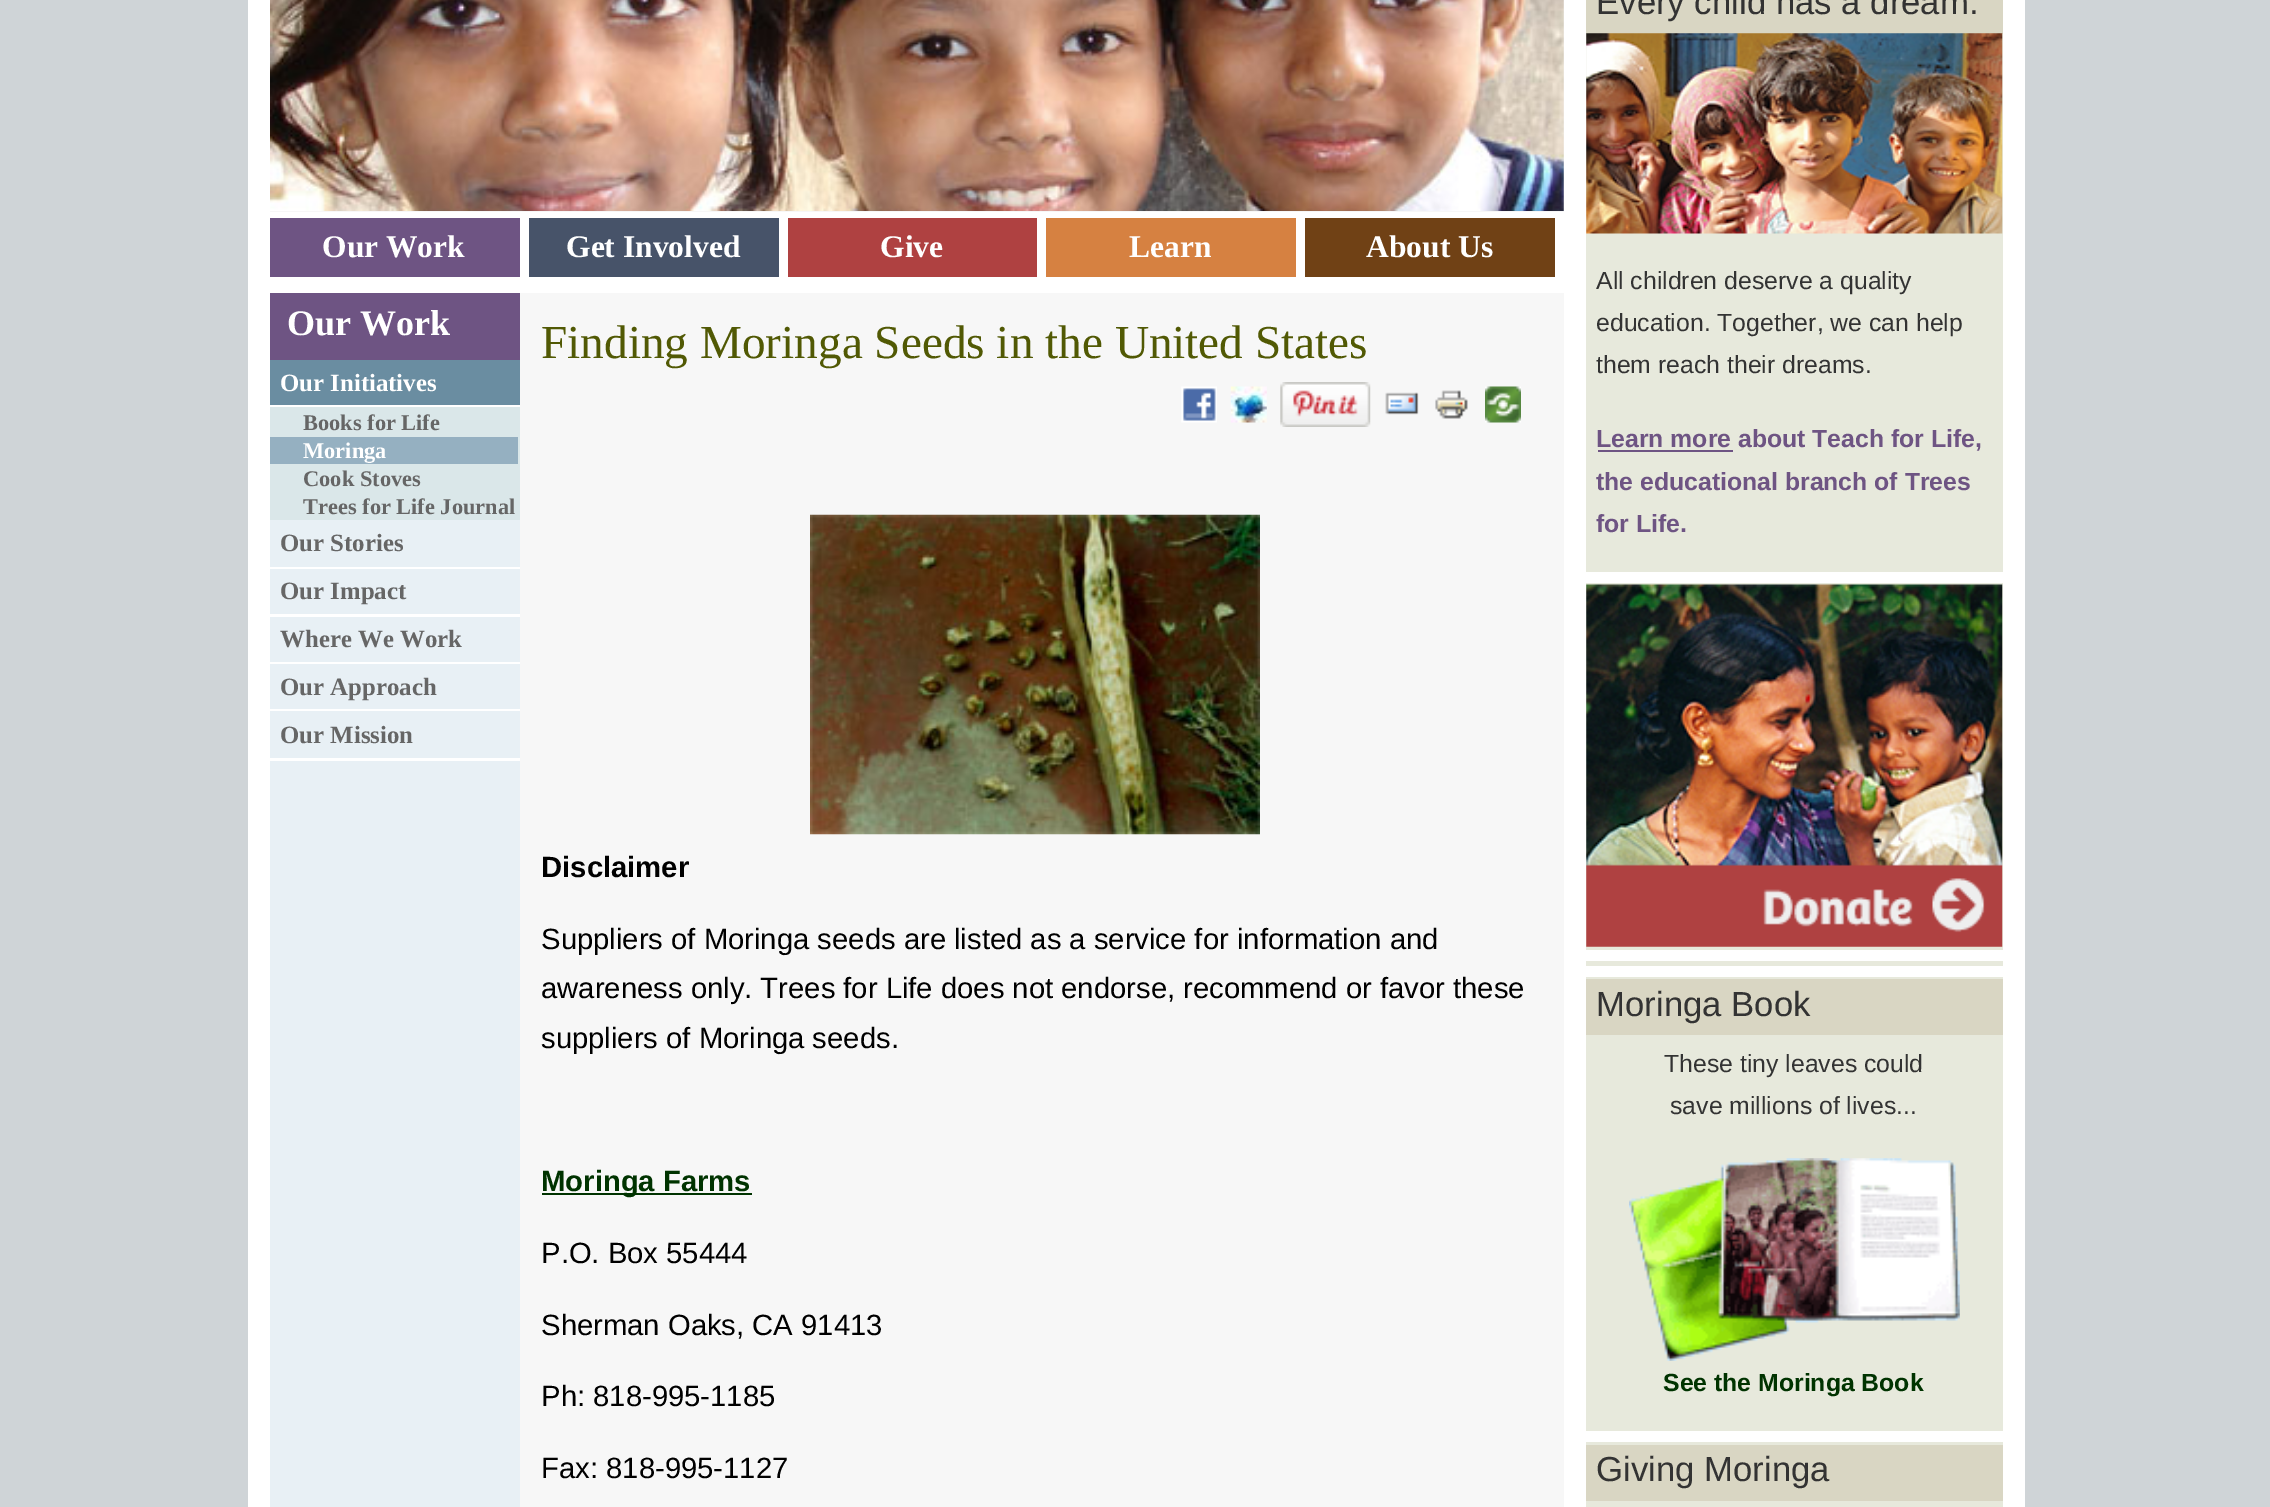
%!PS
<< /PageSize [2270 1507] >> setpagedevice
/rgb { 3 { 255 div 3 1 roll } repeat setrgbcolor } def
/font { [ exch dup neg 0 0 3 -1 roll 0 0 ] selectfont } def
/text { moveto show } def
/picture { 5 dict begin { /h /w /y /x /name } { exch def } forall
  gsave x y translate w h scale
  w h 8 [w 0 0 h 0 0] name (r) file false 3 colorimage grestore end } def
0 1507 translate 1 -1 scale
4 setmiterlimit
207 212 215 rgb
0 0 2270 1507 rectfill
255 255 255 rgb
248 0 1777 1507 rectfill
247 247 247 rgb
270 0 1294 1507 rectfill
(img_01.rgb) 270 0 1294 211 picture
255 255 255 rgb
270 212 1294 81 rectfill
110 84 131 rgb
270 218 250 59 rectfill
71 83 105 rgb
529 218 250 59 rectfill
175 65 65 rgb
788 218 249 59 rectfill
214 129 65 rgb
1046 218 250 59 rectfill
112 65 21 rgb
1305 218 250 59 rectfill
232 240 245 rgb
270 761 250 746 rectfill
110 84 131 rgb
270 293 250 67 rectfill
255 255 255 rgb
270 405 250 356 rectfill
106 141 161 rgb
270 360 250 45 rectfill
218 231 233 rgb
270 407 250 30 rectfill
518 437 2 27 rectfill
149 176 193 rgb
270 437 248 27 rectfill
218 231 233 rgb
270 464 250 56 rectfill
232 240 245 rgb
270 520 250 47 rectfill
270 569 250 45 rectfill
270 617 250 45 rectfill
270 664 250 45 rectfill
270 711 250 47 rectfill
(img_02.rgb) 1181 386 36 37 picture
(img_03.rgb) 1230 386 37 37 picture
(img_04.rgb) 1280 382 91 45 picture
(img_05.rgb) 1385 392 34 23 picture
(img_06.rgb) 1435 390 33 29 picture
(img_07.rgb) 1485 386 36 37 picture
(img_08.rgb) 810 514 450 321 picture
0 51 0 rgb
542 1193 210 2 rectfill
231 233 220 rgb
1586 34 417 538 rectfill
217 214 195 rgb
1586 0 417 34 rectfill
(img_09.rgb) 1586 33 417 201 picture
110 84 131 rgb
1598 450 135 2 rectfill
231 233 220 rgb
1586 583 417 367 rectfill
(img_10.rgb) 1586 584 417 363 picture
1586 961 417 5 rectfill
1586 977 417 454 rectfill
217 214 195 rgb
1586 979 417 56 rectfill
(img_11.rgb) 1629 1158 331 203 picture
231 233 220 rgb
1586 1442 417 65 rectfill
217 214 195 rgb
1586 1445 417 56 rectfill
/LiberationSerif-Bold 31.5 font
255 255 255 rgb
(Our Work) 322 257 text
(Get Involved) 566 257 text
(Give) 880 257 text
(Learn) 1129 257 text
(About Us) 1366 257 text
/LiberationSerif-Bold 36 font
(Our Work) 287 335 text
/LiberationSerif-Bold 24.8 font
(Our Initiatives) 280 391 text
/LiberationSerif-Bold 22.4 font
102 102 102 rgb
(Books for Life) 303 430 text
255 255 255 rgb
(Moringa) 303 458 text
102 102 102 rgb
(Cook Stoves) 303 486 text
(Trees for Life Journal) 303 514 text
/LiberationSerif-Bold 24.8 font
(Our Stories) 280 551 text
(Our Impact) 280 599 text
(Where We Work) 280 647 text
(Our Approach) 280 695 text
(Our Mission) 280 743 text
/LiberationSerif-Regular 47.25 font
81 89 4 rgb
(Finding Moringa Seeds in the United States) 541 358 text
/LiberationSans-Bold 29.25 font
0 0 0 rgb
(Disclaimer) 541 877 text
/LiberationSans-Regular 29.25 font
(Suppliers of Moringa seeds are listed as a service for information and) 541 949 text
(awareness only. Trees for Life does not endorse, recommend or favor these) 541 998 text
(suppliers of Moringa seeds.) 541 1048 text
/LiberationSans-Bold 29.25 font
0 51 0 rgb
(Moringa Farms) 541 1191 text
/LiberationSans-Regular 29.25 font
0 0 0 rgb
(P.O. Box 55444) 541 1263 text
(Sherman Oaks, CA 91413) 541 1335 text
(Ph: 818-995-1185) 541 1406 text
(Fax: 818-995-1127) 541 1478 text
/LiberationSans-Regular 34.75 font
51 51 51 rgb
(Every child has a dream.) 1596 14 text
/LiberationSans-Regular 24.8 font
(All children deserve a quality) 1596 289 text
(education. Together, we can help) 1596 331 text
(them reach their dreams.) 1596 373 text
/LiberationSans-Bold 24.8 font
110 84 131 rgb
(Learn more about Teach for Life,) 1596 447 text
(the educational branch of Trees) 1596 490 text
(for Life.) 1596 532 text
/LiberationSans-Regular 34.75 font
51 51 51 rgb
(Moringa Book) 1596 1016 text
/LiberationSans-Regular 24.8 font
(These tiny leaves could) 1664 1072 text
(save millions of lives...) 1670 1114 text
/LiberationSans-Bold 24.8 font
0 51 0 rgb
(See the Moringa Book) 1663 1391 text
/LiberationSans-Regular 34.75 font
51 51 51 rgb
(Giving Moringa) 1596 1481 text
showpage
